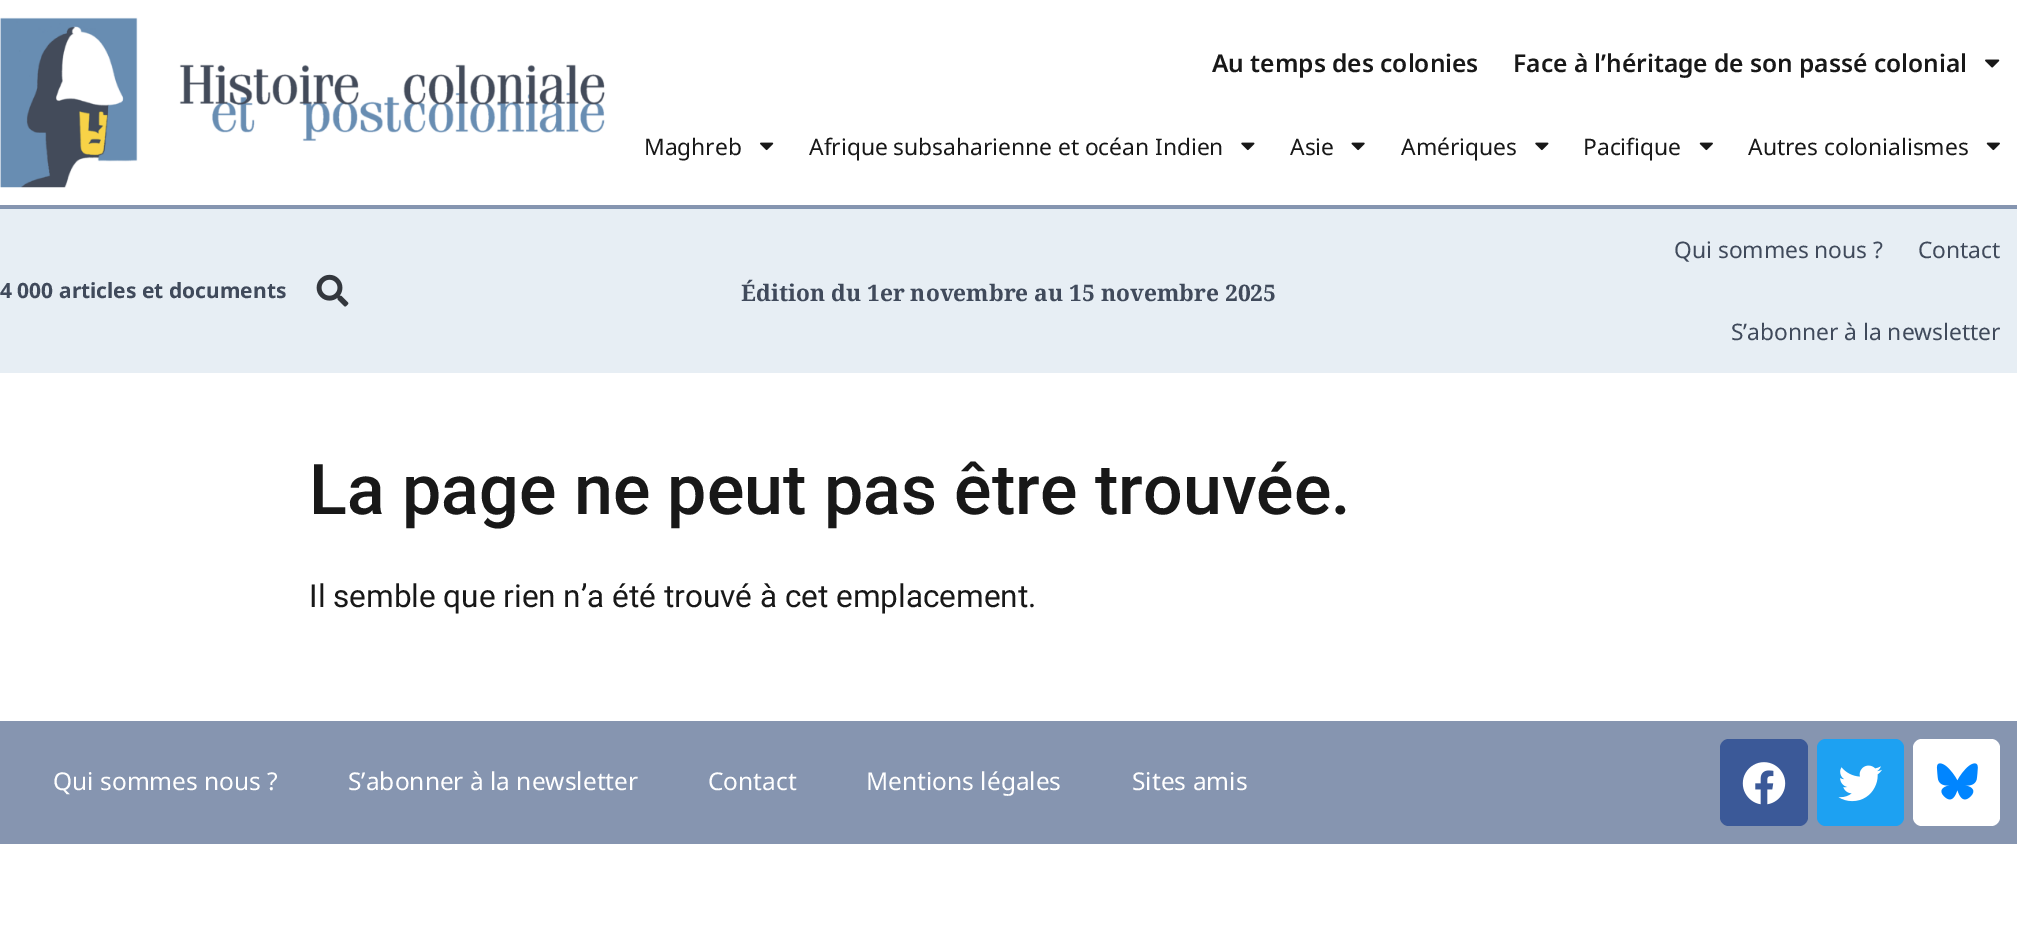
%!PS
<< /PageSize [2017 929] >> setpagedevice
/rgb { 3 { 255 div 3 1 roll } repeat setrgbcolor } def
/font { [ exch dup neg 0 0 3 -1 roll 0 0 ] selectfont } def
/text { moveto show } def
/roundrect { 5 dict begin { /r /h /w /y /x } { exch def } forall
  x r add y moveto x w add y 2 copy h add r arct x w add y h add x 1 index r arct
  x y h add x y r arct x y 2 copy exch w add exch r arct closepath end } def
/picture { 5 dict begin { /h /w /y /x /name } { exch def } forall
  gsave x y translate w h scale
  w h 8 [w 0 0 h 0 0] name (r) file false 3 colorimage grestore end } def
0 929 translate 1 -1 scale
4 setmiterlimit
255 255 255 rgb
0 0 2017 929 rectfill
231 238 244 rgb
0 209 2017 164 rectfill
134 149 176 rgb
0 205 2017 3 rectfill
128 148 177 rgb
0 208 2017 1 rectfill
(img_01.rgb) 0 17 605 171 picture
(img_02.rgb) 1985 59 15 9 picture
(img_03.rgb) 760 142 14 9 picture
(img_04.rgb) 1241 142 14 9 picture
(img_05.rgb) 1351 142 14 9 picture
(img_04.rgb) 1535 142 14 9 picture
(img_06.rgb) 1699 142 14 9 picture
(img_06.rgb) 1986 142 14 9 picture
(img_07.rgb) 316 274 33 33 picture
134 149 176 rgb
0 721 2017 123 rectfill
59 89 152 rgb
1720 739 88 87 9 roundrect fill
(img_08.rgb) 1742 762 44 43 picture
29 161 242 rgb
1817 739 87 87 9 roundrect fill
(img_09.rgb) 1838 765 44 37 picture
255 255 255 rgb
1913 739 87 87 9 roundrect fill
(img_10.rgb) 1936 763 42 37 picture
/NotoSans-SemiBold 24.5 font
24 24 24 rgb
(Au temps des colonies) 1212 72 text
(Face à l’héritage de son passé colonial) 1513 72 text
/NotoSans-Regular 22.75 font
(Maghreb) 644 155 text
(Afrique subsaharienne et océan Indien) 809 155 text
(Asie) 1290 155 text
(Amériques) 1401 155 text
(Pacifique) 1583 155 text
(Autres colonialismes) 1748 155 text
/NotoSans-Bold 21 font
64 74 91 rgb
(4 000 articles et documents) 0 298 text
/NotoSerif-Bold 22.75 font
(Édition du 1er novembre au 15 novembre 2025) 741 301 text
/NotoSans-Regular 22.75 font
(Qui sommes nous ?) 1674 258 text
(Contact) 1918 258 text
(S’abonner à la newsletter) 1731 340 text
/Roboto-Medium 70 font
24 24 24 rgb
(La page ne peut pas être trouvée.) 309 514 text
/Roboto-Regular 31.5 font
(Il semble que rien n’a été trouvé à cet emplacement.) 309 607 text
/NotoSans-Regular 24.5 font
255 255 255 rgb
(Qui sommes nous ?) 53 790 text
(S’abonner à la newsletter) 348 790 text
(Contact) 708 790 text
(Mentions légales) 866 790 text
(Sites amis) 1132 790 text
showpage
